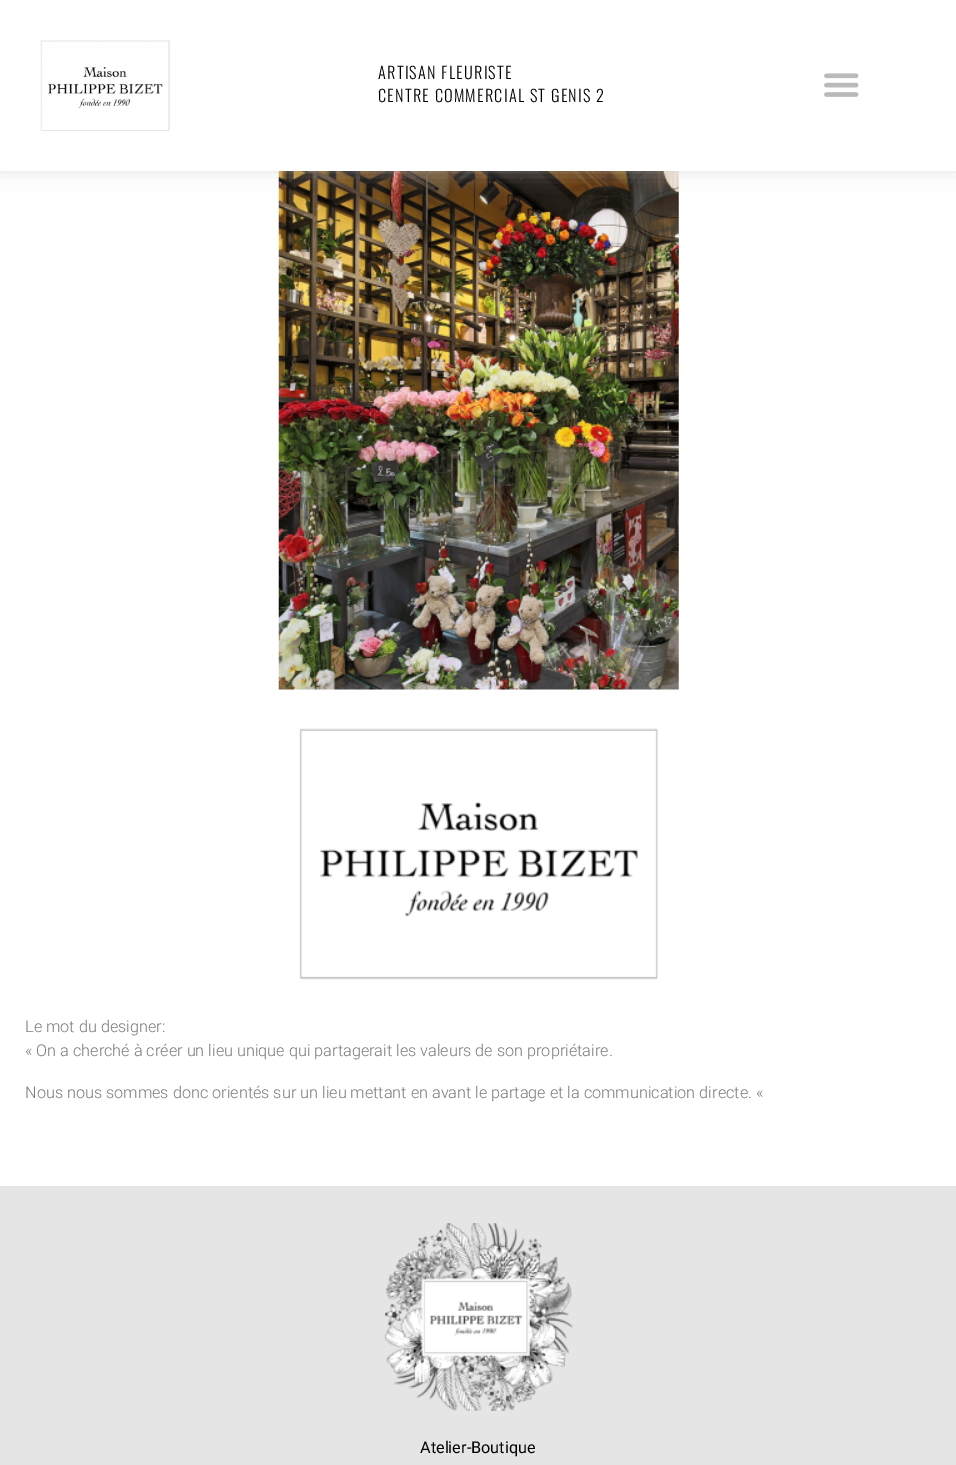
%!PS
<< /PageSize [956 1465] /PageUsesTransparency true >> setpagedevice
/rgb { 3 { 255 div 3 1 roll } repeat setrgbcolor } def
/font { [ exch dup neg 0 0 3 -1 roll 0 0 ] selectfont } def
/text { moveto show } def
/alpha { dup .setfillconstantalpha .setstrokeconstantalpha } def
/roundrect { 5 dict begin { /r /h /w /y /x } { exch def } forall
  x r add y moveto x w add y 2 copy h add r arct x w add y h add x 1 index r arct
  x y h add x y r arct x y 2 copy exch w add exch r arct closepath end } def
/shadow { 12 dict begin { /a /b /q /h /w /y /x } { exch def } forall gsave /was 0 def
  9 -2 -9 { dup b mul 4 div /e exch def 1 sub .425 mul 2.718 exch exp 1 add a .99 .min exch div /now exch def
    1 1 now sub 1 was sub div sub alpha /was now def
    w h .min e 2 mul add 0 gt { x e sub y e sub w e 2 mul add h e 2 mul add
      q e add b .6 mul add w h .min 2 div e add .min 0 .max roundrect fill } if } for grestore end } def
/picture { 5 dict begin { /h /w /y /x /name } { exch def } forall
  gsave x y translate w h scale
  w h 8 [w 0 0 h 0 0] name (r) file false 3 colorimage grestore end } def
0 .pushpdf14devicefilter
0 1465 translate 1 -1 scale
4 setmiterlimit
255 255 255 rgb
0 0 956 1465 rectfill
(img_03.rgb) 278 171 401 519 picture
201 201 201 rgb
-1 -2 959 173 0 10 0.53 shadow
255 255 255 rgb
0 0 956 171 rectfill
(img_01.rgb) 40 40 130 91 picture
(img_02.rgb) 824 73 35 24 picture
(img_04.rgb) 299 728 359 252 picture
229 229 229 rgb
0 1186 956 279 rectfill
(img_05.rgb) 385 1223 188 188 picture
/Oswald-Light 16.25 font
0 0 0 rgb
378 79 moveto 1.25 0 (ARTISAN FLEURISTE) ashow
378 102 moveto 1.25 0 (CENTRE COMMERCIAL ST GENIS 2) ashow
/Roboto-Light 16.25 font
122 122 122 rgb
(Le mot du designer:) 25 1032 text
(« On a cherché à créer un lieu unique qui partagerait les valeurs de son propriétaire.) 25 1056 text
(Nous nous sommes donc orientés sur un lieu mettant en avant le partage et la communication directe. «) 25 1098 text
/Roboto-Regular 16.25 font
0 0 0 rgb
(Atelier-Boutique) 420 1453 text
.poppdf14devicefilter showpage
